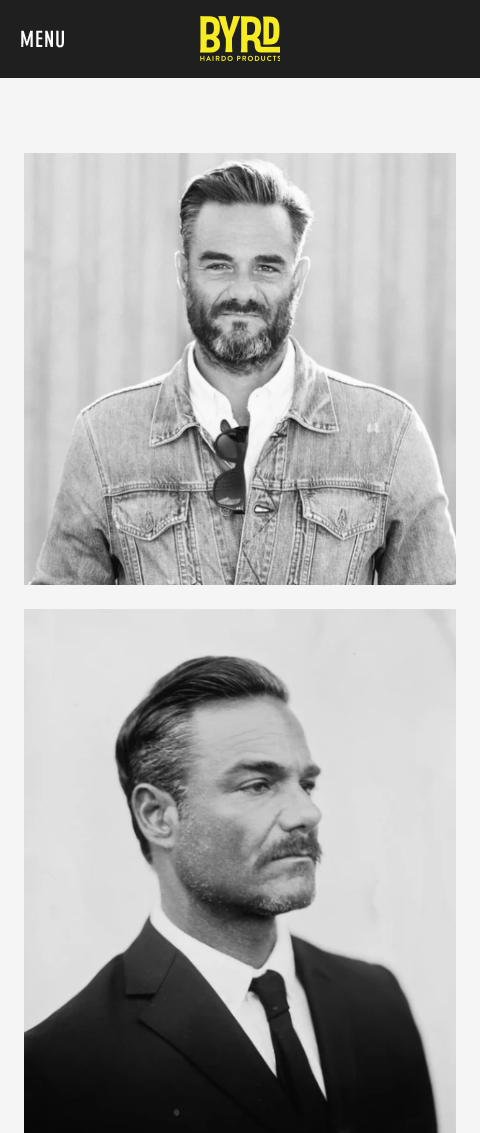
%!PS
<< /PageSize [480 1133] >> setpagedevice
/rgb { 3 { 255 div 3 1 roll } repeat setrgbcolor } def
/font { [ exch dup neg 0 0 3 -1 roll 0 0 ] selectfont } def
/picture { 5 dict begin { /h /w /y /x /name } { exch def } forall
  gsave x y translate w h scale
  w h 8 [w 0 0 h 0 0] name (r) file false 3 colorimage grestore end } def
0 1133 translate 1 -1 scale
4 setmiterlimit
245 245 245 rgb
0 0 480 1133 rectfill
31 31 31 rgb
0 0 480 78 rectfill
(img_01.rgb) 200 16 80 45 picture
(img_02.rgb) 24 153 432 432 picture
(img_03.rgb) 24 609 432 524 picture
/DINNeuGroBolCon-Thin 22 font
255 255 255 rgb
20 47 moveto 1 0 (MENU) ashow
showpage
